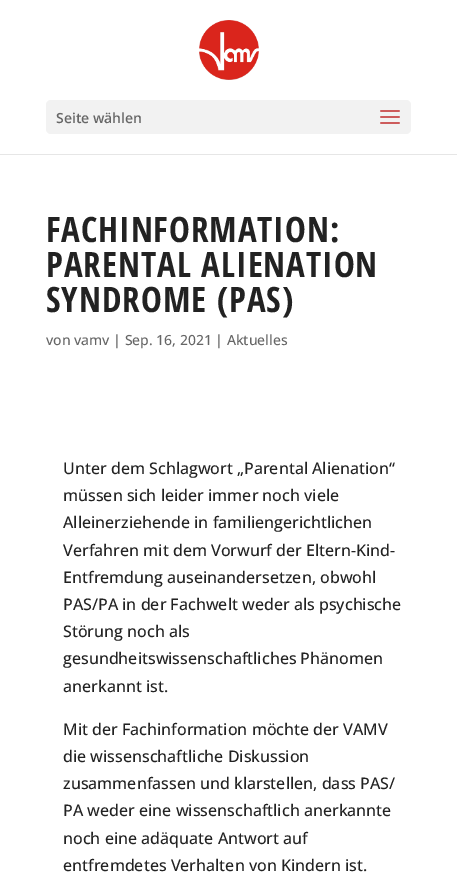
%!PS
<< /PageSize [457 876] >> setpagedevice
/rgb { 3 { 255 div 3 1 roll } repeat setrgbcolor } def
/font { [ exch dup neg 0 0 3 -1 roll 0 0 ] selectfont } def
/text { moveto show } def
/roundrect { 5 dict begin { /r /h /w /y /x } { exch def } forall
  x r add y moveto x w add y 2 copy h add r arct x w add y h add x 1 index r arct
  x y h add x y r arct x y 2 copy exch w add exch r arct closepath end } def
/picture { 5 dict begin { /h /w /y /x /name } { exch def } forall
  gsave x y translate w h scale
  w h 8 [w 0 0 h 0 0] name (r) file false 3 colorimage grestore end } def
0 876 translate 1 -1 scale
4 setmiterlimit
255 255 255 rgb
0 0 457 876 rectfill
230 230 230 rgb
0 154 457 1 rectfill
(img_01.rgb) 199 20 60 60 picture
242 242 242 rgb
46 100 365 34 5 roundrect fill
(img_02.rgb) 380 110 20 14 picture
/OpenSans-SemiBold 14 font
102 102 102 rgb
(Seite wählen) 56 123 text
/OpenSansCondensed-Bold 35 font
34 34 34 rgb
46 242 moveto 1 0 (FACHINFORMATION:) ashow
46 277 moveto 1 0 (PARENTAL ALIENATION) ashow
46 312 moveto 1 0 (SYNDROME \(PAS\)) ashow
/OpenSans-Medium 14 font
102 102 102 rgb
(von vamv | Sep. 16, 2021 | Aktuelles) 46 345 text
/OpenSans-Medium 16 font
34 34 34 rgb
(Unter dem Schlagwort „Parental Alienation“) 63 474 text
(müssen sich leider immer noch viele) 63 501 text
(Alleinerziehende in familiengerichtlichen) 63 528 text
(Verfahren mit dem Vorwurf der Eltern-Kind-) 63 556 text
(Entfremdung auseinandersetzen, obwohl) 63 583 text
(PAS/PA in der Fachwelt weder als psychische) 63 610 text
(Störung noch als) 63 637 text
(gesundheitswissenschaftliches Phänomen) 63 664 text
(anerkannt ist.) 63 692 text
(Mit der Fachinformation möchte der VAMV) 63 735 text
(die wissenschaftliche Diskussion) 63 762 text
(zusammenfassen und klarstellen, dass PAS/) 63 789 text
(PA weder eine wissenschaftlich anerkannte) 63 816 text
(noch eine adäquate Antwort auf) 63 844 text
(entfremdetes Verhalten von Kindern ist.) 63 871 text
showpage
